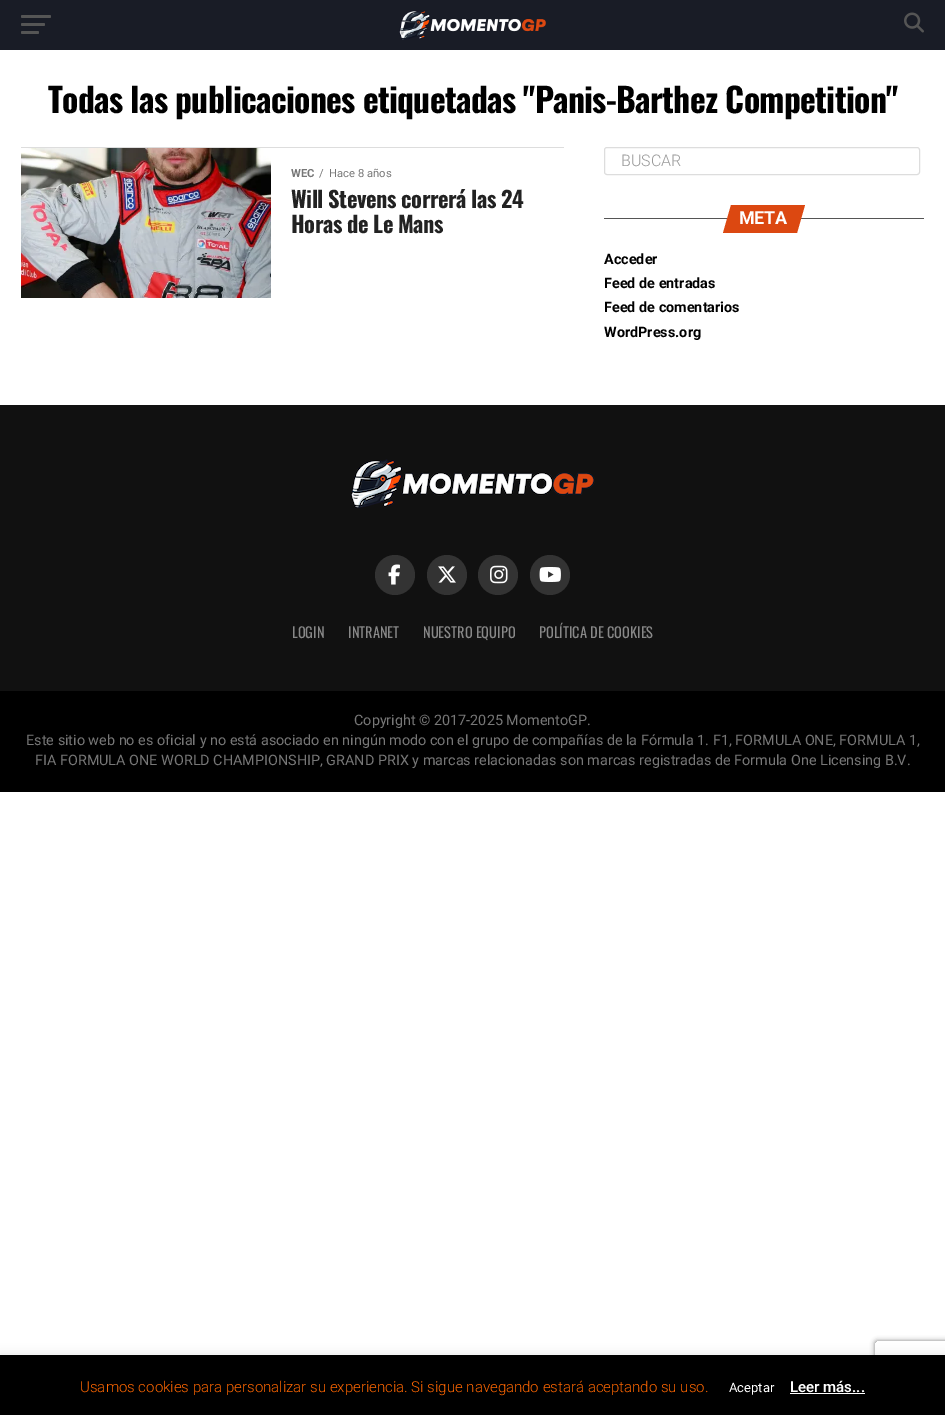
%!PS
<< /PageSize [945 1415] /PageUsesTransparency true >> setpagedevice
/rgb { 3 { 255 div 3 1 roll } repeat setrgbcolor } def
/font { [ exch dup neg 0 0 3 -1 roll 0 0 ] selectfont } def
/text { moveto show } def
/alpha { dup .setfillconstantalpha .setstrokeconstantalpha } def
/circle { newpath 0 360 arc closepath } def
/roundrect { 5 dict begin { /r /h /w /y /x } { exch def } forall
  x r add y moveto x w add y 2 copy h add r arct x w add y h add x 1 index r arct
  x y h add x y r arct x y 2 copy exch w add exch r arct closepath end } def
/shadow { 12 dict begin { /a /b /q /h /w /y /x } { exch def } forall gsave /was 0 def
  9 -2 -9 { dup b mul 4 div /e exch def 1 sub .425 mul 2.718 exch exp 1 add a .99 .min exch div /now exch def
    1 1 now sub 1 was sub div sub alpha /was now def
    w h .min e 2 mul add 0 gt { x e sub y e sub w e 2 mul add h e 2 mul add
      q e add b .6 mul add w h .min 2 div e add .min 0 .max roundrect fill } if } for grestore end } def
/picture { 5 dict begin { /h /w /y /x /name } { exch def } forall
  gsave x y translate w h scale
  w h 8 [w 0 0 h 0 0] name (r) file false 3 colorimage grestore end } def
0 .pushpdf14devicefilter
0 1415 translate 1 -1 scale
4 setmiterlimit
255 255 255 rgb
0 0 945 1415 rectfill
25 28 38 rgb
0 0 945 50 rectfill
85 85 85 rgb
21 15 30 3 1.5 roundrect fill
21 23 24 3 1.5 roundrect fill
21 31 18 3 1.5 roundrect fill
(img_01.rgb) 399 10 147 30 picture
(img_02.rgb) 904 12 20 21 picture
221 221 221 rgb
21 147 543 1 rectfill
(img_03.rgb) 21 148 250 150 picture
604.5 147.5 315 27 2.5 roundrect stroke
85 85 85 rgb
604 218 320 1 rectfill
220 72 17 rgb
731 205 moveto 74 0 rlineto -8 28 rlineto -74 0 rlineto closepath fill
17 17 17 rgb
0 405 945 286 rectfill
(img_04.rgb) 351 459 244 49 picture
51 51 51 rgb
395 575 20 circle fill
(img_05.rgb) 388 564 12 21 picture
447 575 20 circle fill
(img_06.rgb) 438 566 18 17 picture
498 575 20 circle fill
(img_07.rgb) 490 565 18 19 picture
550 575 20 circle fill
(img_08.rgb) 539 567 22 15 picture
0 0 0 rgb
0 691 945 101 rectfill
172 171 171 rgb
0 1354 945 60 0 5 0.3 shadow
gsave
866 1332 moveto 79 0 rlineto 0 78 rlineto -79 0 rlineto closepath 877 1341 moveto 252 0 rlineto 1 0 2 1 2 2 rcurveto 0 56 rlineto 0 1 -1 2 -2 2 rcurveto -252 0 rlineto -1 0 -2 -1 -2 -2 rcurveto 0 -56 rlineto 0 -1 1 -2 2 -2 rcurveto closepath eoclip newpath
128 128 128 rgb
875 1341 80 60 2 2.5 1 shadow
grestore
0 0 0 rgb
0 1355 945 60 rectfill
255 255 255 rgb
790 1393 75 1 rectfill
/Oswald-Bold 33.6 font
0 0 0 rgb
48 113 moveto -0.67 0 (Todas las publicaciones etiquetadas "Panis-Barthez Competition") ashow
/Roboto-Bold 11.25 font
119 119 119 rgb
(WEC) 291 177 text
/Roboto-Regular 11.25 font
(/) 319 177 text
(Hace 8 años) 329 177 text
/Oswald-Bold 22.4 font
34 34 34 rgb
291 208 moveto -0.45 0 (Will Stevens correrá las 24) ashow
291 233 moveto -0.45 0 (Horas de Le Mans) ashow
/Roboto-Light 16 font
153 153 153 rgb
(BUSCAR) 621 166 text
/Roboto-Bold 18 font
255 255 255 rgb
739 224 moveto -0.5 0 (META) ashow
/Roboto-Bold 14.4 font
0 0 0 rgb
(Acceder) 604 264 text
(Feed de entradas) 604 288 text
(Feed de comentarios) 604 312 text
(WordPress.org) 604 337 text
/Oswald-Regular 14.4 font
136 136 136 rgb
(LOGIN) 292 638 text
(INTRANET) 348 638 text
(NUESTRO EQUIPO) 423 638 text
(POLÍTICA DE COOKIES) 539 638 text
/Roboto-Regular 14.4 font
119 119 119 rgb
(Copyright © 2017-2025 MomentoGP.) 354 725 text
(Este sitio web no es oficial y no está asociado en ningún modo con el grupo de compañías de la Fórmula 1. F1, FORMULA ONE, FORMULA 1,) 26 745 text
(FIA FORMULA ONE WORLD CHAMPIONSHIP, GRAND PRIX y marcas relacionadas son marcas registradas de Formula One Licensing B.V.) 35 765 text
/Roboto-Light 15 font
255 102 0 rgb
(Usamos cookies para personalizar su experiencia. Si sigue navegando estará aceptando su uso.) 80 1392 text
/Roboto-Regular 13 font
255 255 255 rgb
(Aceptar) 729 1392 text
/Roboto-SemiBold 15 font
(Leer más...) 790 1392 text
.poppdf14devicefilter showpage
